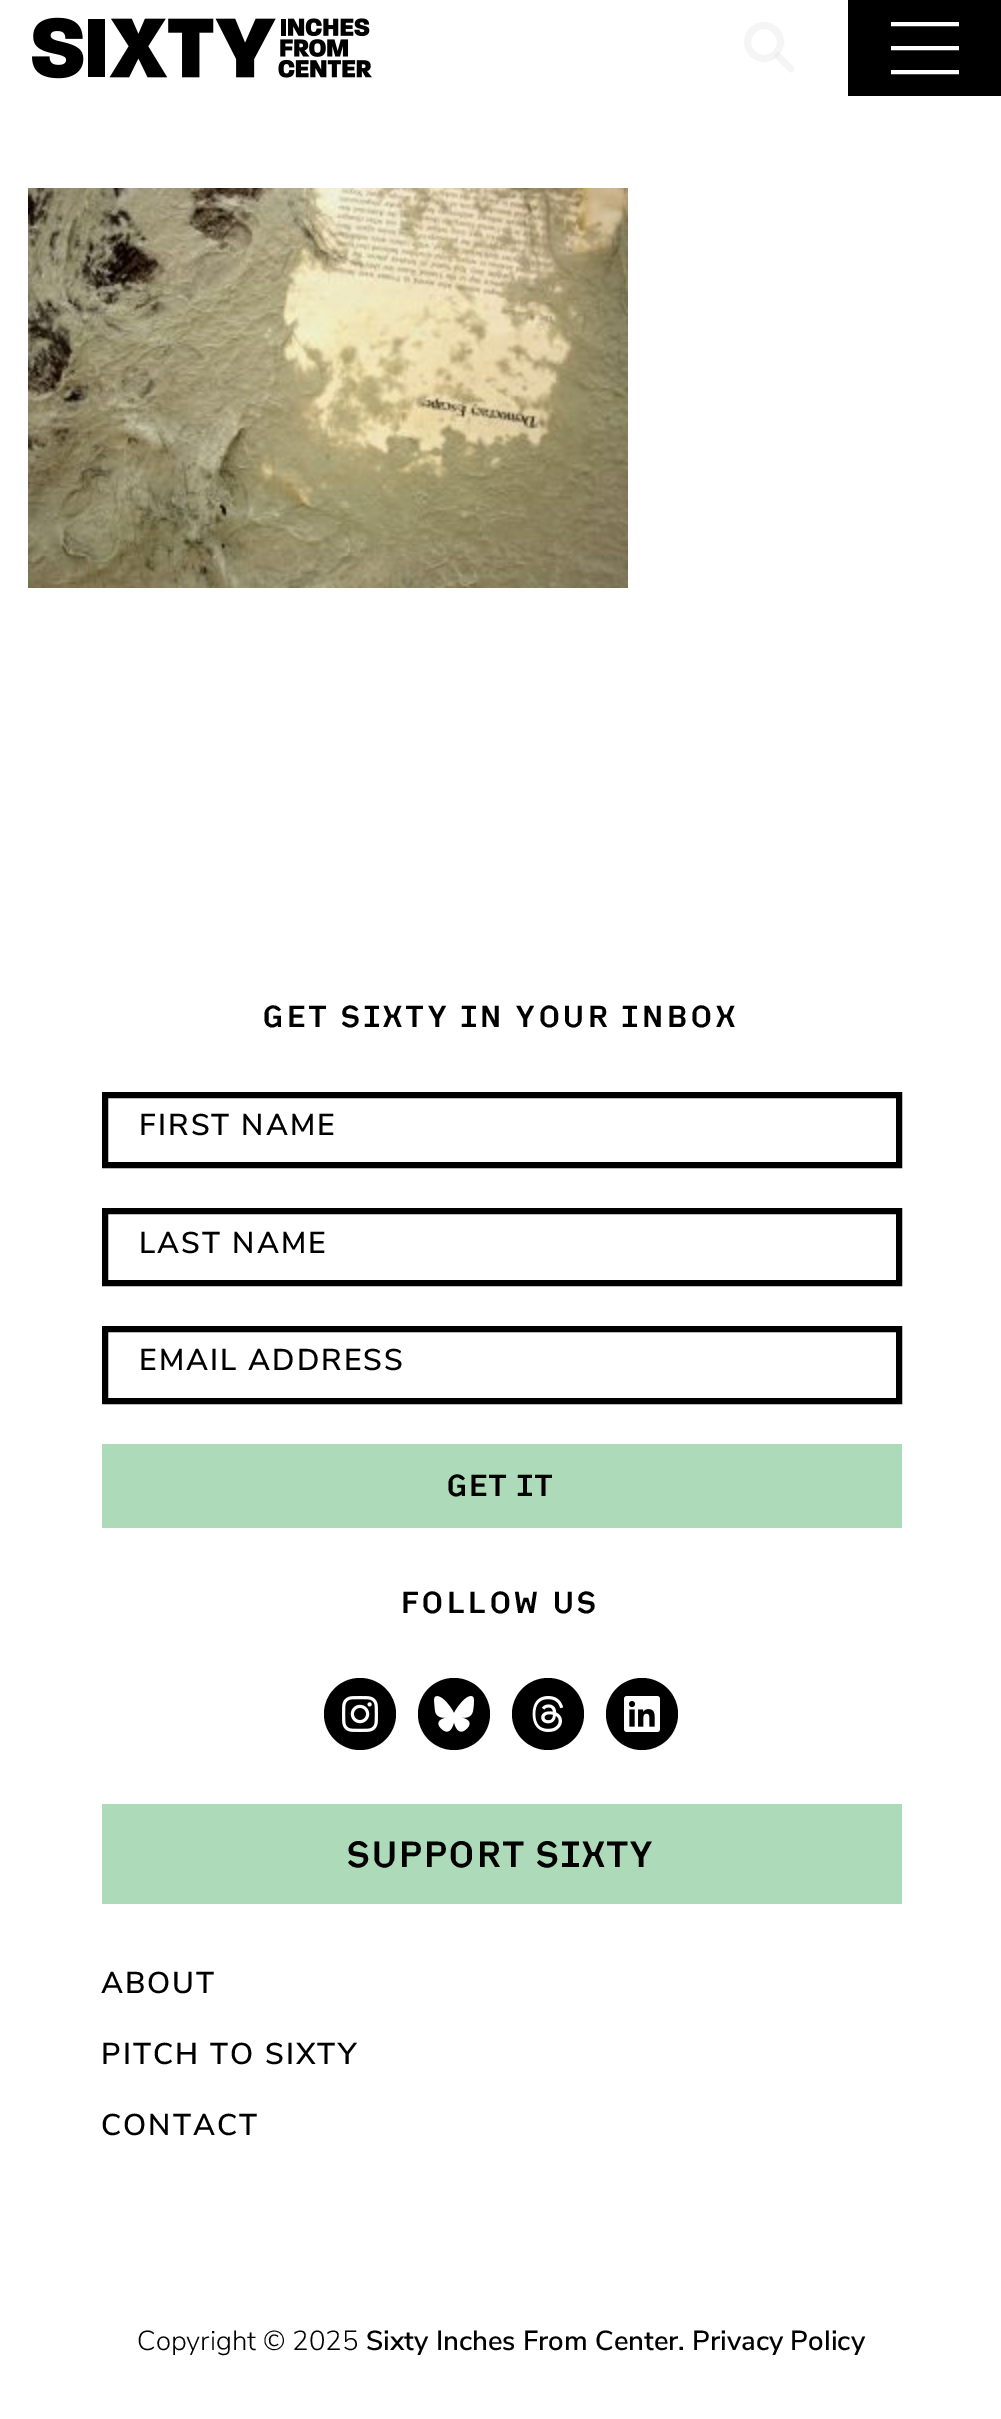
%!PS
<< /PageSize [1001 2419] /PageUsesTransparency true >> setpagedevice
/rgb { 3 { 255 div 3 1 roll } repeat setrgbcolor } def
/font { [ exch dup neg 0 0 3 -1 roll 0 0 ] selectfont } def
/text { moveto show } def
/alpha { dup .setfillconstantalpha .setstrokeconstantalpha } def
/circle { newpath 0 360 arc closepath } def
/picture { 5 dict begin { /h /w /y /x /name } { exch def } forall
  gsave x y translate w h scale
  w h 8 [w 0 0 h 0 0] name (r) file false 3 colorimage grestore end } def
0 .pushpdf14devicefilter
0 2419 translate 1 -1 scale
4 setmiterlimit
255 255 255 rgb
0 0 1001 2419 rectfill
(img_01.rgb) 32 17 340 62 picture
245 245 245 rgb
7 setlinewidth
764 42 16.5 circle stroke
0.2 alpha
204 204 204 rgb
1 setlinecap
778 56 moveto 13 13 rlineto stroke
1 alpha
0 0 0 rgb
848 0 153 96 rectfill
255 255 255 rgb
4 setlinewidth
2 setlinecap
893 24 moveto 64 0 rlineto 893 48 moveto 64 0 rlineto 893 72 moveto 64 0 rlineto stroke
(img_02.rgb) 28 188 600 400 picture
0 0 0 rgb
6 setlinewidth
0 setlinecap
105 1095 794 70 rectstroke
105 1211 794 72 rectstroke
105 1329 794 72 rectstroke
173 218 184 rgb
102 1444 800 84 rectfill
0 0 0 rgb
360 1714 36 circle fill
(img_03.rgb) 342 1696 36 36 picture
454 1714 36 circle fill
(img_04.rgb) 434 1696 40 36 picture
548 1714 36 circle fill
(img_05.rgb) 532 1696 32 36 picture
642 1714 36 circle fill
(img_06.rgb) 624 1696 36 36 picture
173 218 184 rgb
102 1804 800 100 rectfill
/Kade-Medium 30 font
0 0 0 rgb
263 1027 moveto 4 0 (GET SIXTY IN YOUR INBOX) ashow
/NunitoSans-SemiBold 30 font
139 1135 moveto 2 0 (FIRST NAME) ashow
139 1253 moveto 2 0 (LAST NAME) ashow
139 1370 moveto 2 0 (EMAIL ADDRESS) ashow
/Kade-Medium 30 font
447 1496 moveto 2 0 (GET IT) ashow
401 1613 moveto 4 0 (FOLLOW US) ashow
/Kade-Medium 36 font
347 1867 moveto 2.4 0 (SUPPORT SIXTY) ashow
/NunitoSans-SemiBold 30 font
101 1993 moveto 2 0 (ABOUT) ashow
101 2064 moveto 2 0 (PITCH TO SIXTY) ashow
101 2135 moveto 2 0 (CONTACT) ashow
/NunitoSans-Light 27.5 font
(Copyright © 2025) 137 2350 text
/NunitoSans-SemiBold 27.5 font
(Sixty Inches From Center.) 366 2350 text
(Privacy Policy) 692 2350 text
.poppdf14devicefilter showpage
